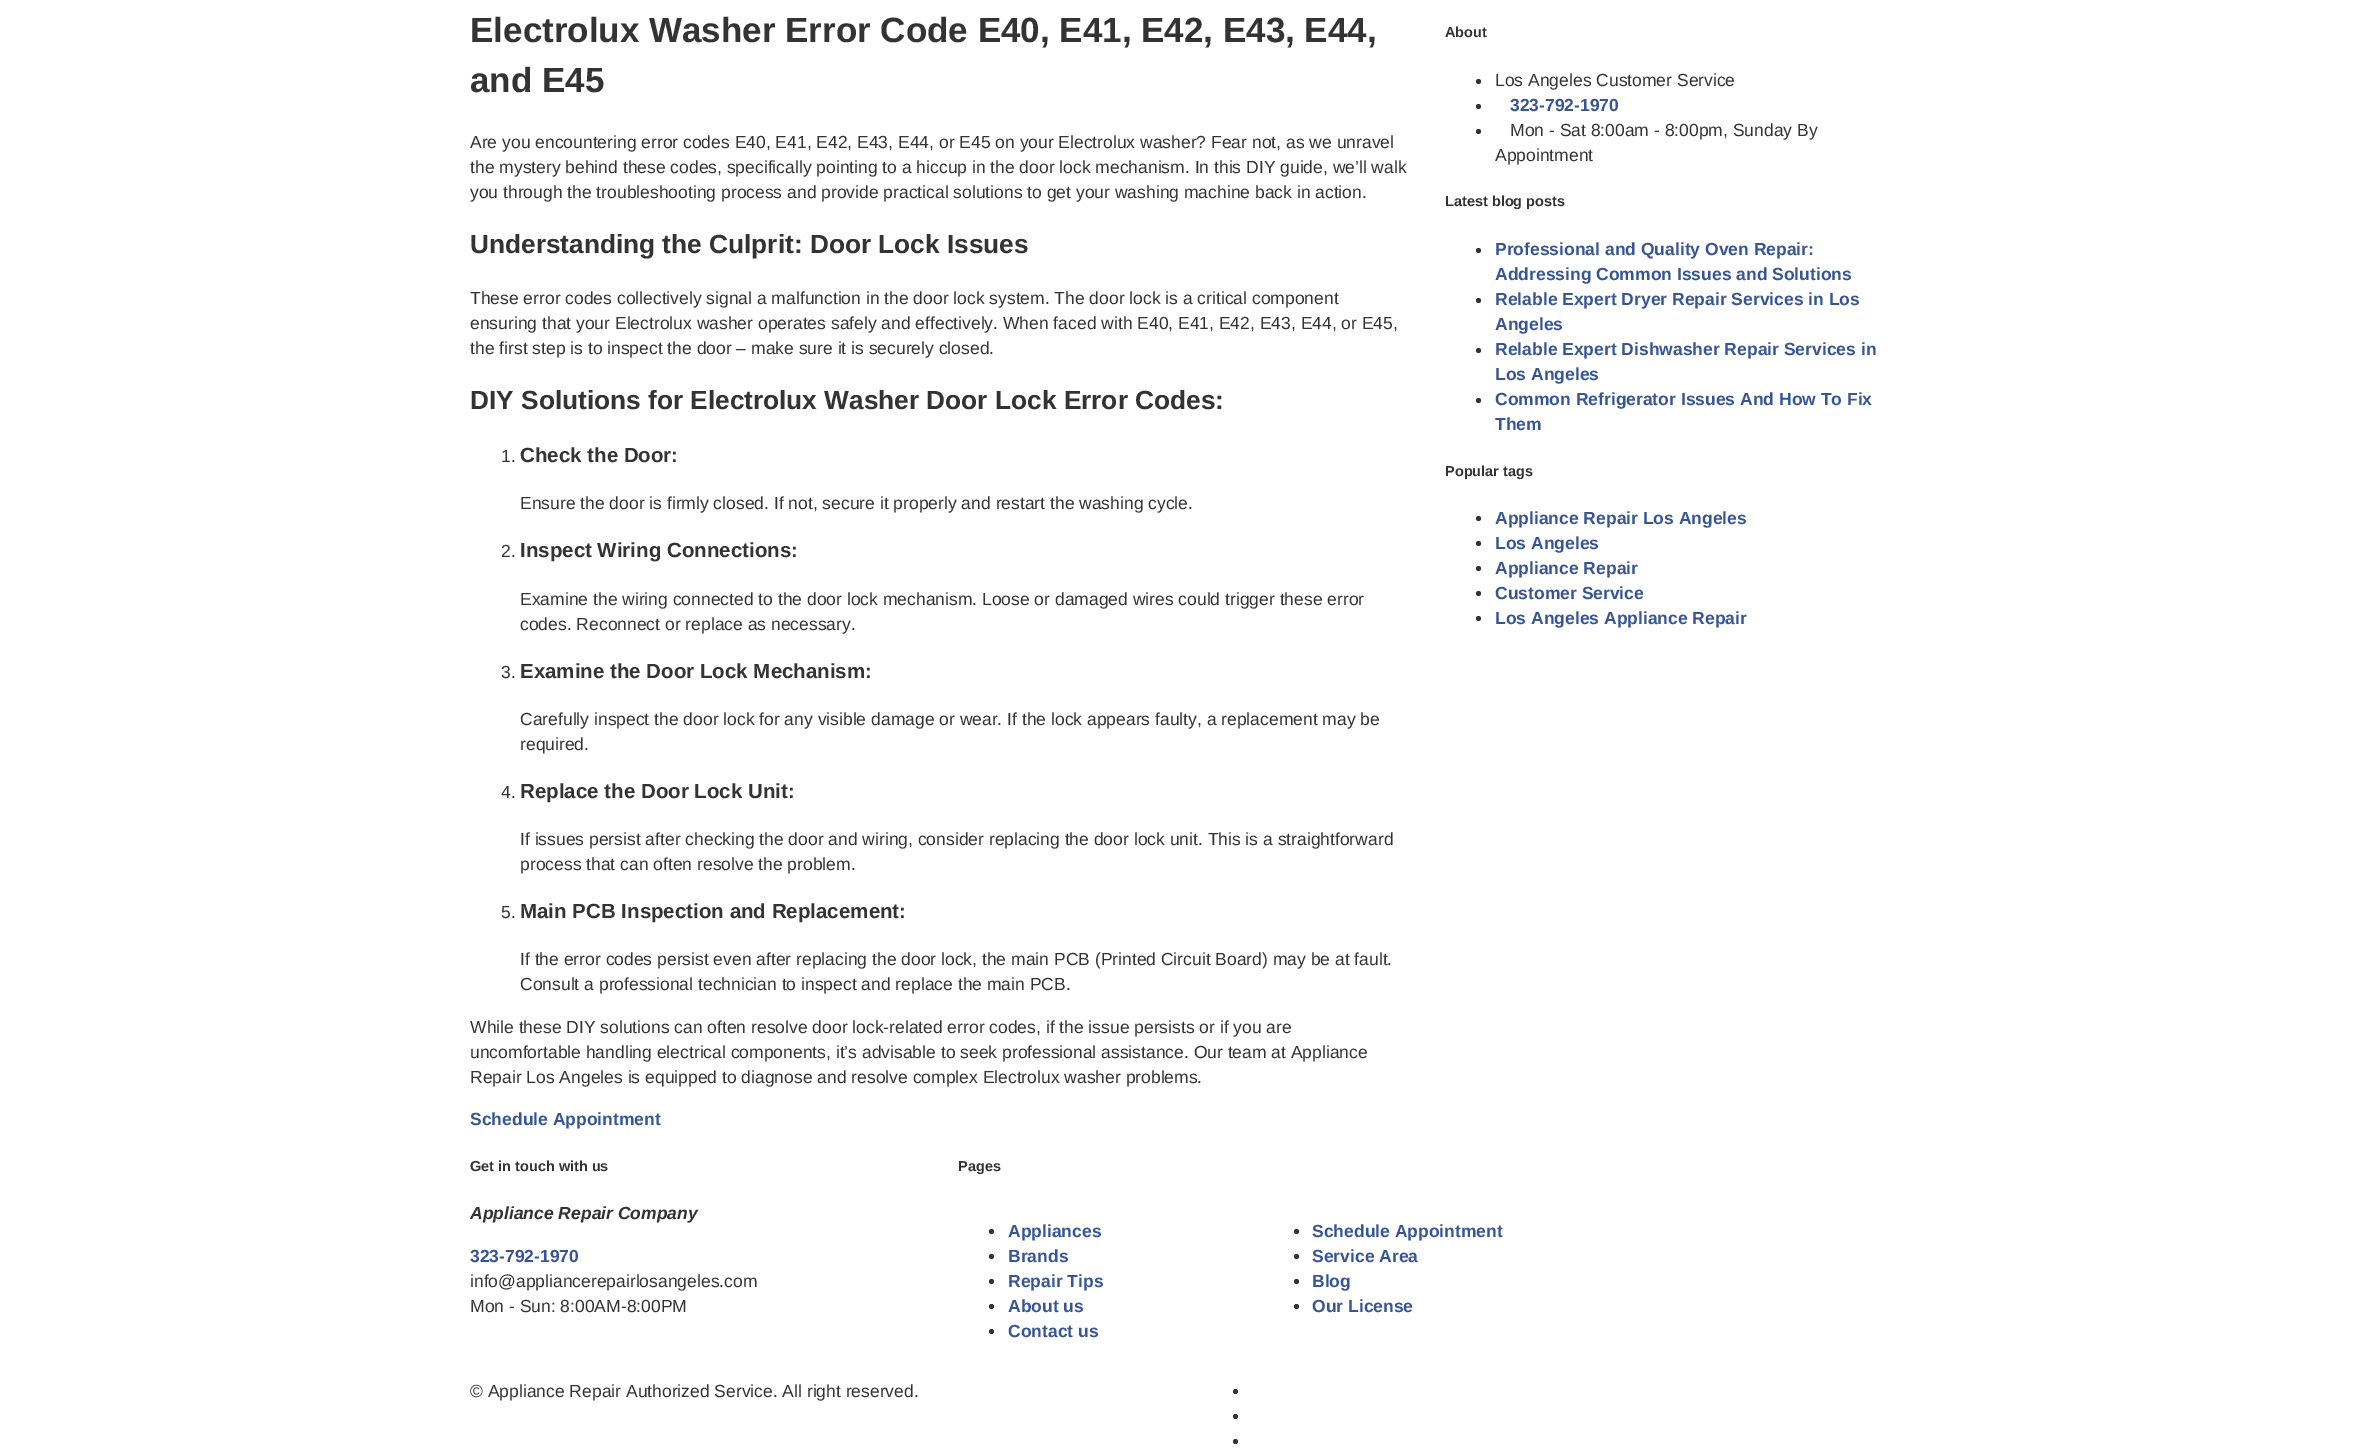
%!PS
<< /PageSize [2364 1451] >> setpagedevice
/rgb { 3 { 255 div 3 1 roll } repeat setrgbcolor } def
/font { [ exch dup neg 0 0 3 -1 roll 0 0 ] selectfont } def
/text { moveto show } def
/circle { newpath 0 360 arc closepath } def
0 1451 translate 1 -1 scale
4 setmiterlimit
255 255 255 rgb
0 0 2364 1451 rectfill
51 51 51 rgb
1478.5 81.5 2.5 circle fill
1478.5 106.5 2.5 circle fill
1478.5 131.5 2.5 circle fill
1478.5 250.5 2.5 circle fill
1478.5 300.5 2.5 circle fill
1478.5 350.5 2.5 circle fill
1478.5 400.5 2.5 circle fill
1478.5 518.5 2.5 circle fill
1478.5 543.5 2.5 circle fill
1478.5 568.5 2.5 circle fill
1478.5 593.5 2.5 circle fill
1478.5 618.5 2.5 circle fill
991.5 1231.5 2.5 circle fill
991.5 1256.5 2.5 circle fill
991.5 1281.5 2.5 circle fill
991.5 1306.5 2.5 circle fill
991.5 1331.5 2.5 circle fill
1296.5 1231.5 2.5 circle fill
1296.5 1256.5 2.5 circle fill
1296.5 1281.5 2.5 circle fill
1296.5 1306.5 2.5 circle fill
1235.5 1391.5 2.5 circle fill
1235.5 1416.5 2.5 circle fill
1235.5 1441.5 2.5 circle fill
/LiberationSans-Bold 35 font
(Electrolux Washer Error Code E40, E41, E42, E43, E44,) 470 42 text
(and E45) 470 92 text
/LiberationSans-Regular 17.5 font
(Are you encountering error codes E40, E41, E42, E43, E44, or E45 on your Electrolux washer? Fear not, as we unravel) 470 148 text
(the mystery behind these codes, specifically pointing to a hiccup in the door lock mechanism. In this DIY guide, we’ll walk) 470 173 text
(you through the troubleshooting process and provide practical solutions to get your washing machine back in action.) 470 198 text
/LiberationSans-Bold 26.25 font
(Understanding the Culprit: Door Lock Issues) 470 253 text
/LiberationSans-Regular 17.5 font
(These error codes collectively signal a malfunction in the door lock system. The door lock is a critical component) 470 304 text
(ensuring that your Electrolux washer operates safely and effectively. When faced with E40, E41, E42, E43, E44, or E45,) 470 329 text
(the first step is to inspect the door – make sure it is securely closed.) 470 354 text
/LiberationSans-Bold 26.25 font
(DIY Solutions for Electrolux Washer Door Lock Error Codes:) 470 409 text
/LiberationSans-Regular 17.5 font
(1.) 501 462 text
/LiberationSans-Bold 20.5 font
(Check the Door:) 520 462 text
/LiberationSans-Regular 17.5 font
(Ensure the door is firmly closed. If not, secure it properly and restart the washing cycle.) 520 509 text
(2.) 501 557 text
/LiberationSans-Bold 20.5 font
(Inspect Wiring Connections:) 520 557 text
/LiberationSans-Regular 17.5 font
(Examine the wiring connected to the door lock mechanism. Loose or damaged wires could trigger these error) 520 605 text
(codes. Reconnect or replace as necessary.) 520 630 text
(3.) 501 678 text
/LiberationSans-Bold 20.5 font
(Examine the Door Lock Mechanism:) 520 678 text
/LiberationSans-Regular 17.5 font
(Carefully inspect the door lock for any visible damage or wear. If the lock appears faulty, a replacement may be) 520 725 text
(required.) 520 750 text
(4.) 501 798 text
/LiberationSans-Bold 20.5 font
(Replace the Door Lock Unit:) 520 798 text
/LiberationSans-Regular 17.5 font
(If issues persist after checking the door and wiring, consider replacing the door lock unit. This is a straightforward) 520 845 text
(process that can often resolve the problem.) 520 870 text
(5.) 501 918 text
/LiberationSans-Bold 20.5 font
(Main PCB Inspection and Replacement:) 520 918 text
/LiberationSans-Regular 17.5 font
(If the error codes persist even after replacing the door lock, the main PCB \(Printed Circuit Board\) may be at fault.) 520 965 text
(Consult a professional technician to inspect and replace the main PCB.) 520 990 text
(While these DIY solutions can often resolve door lock-related error codes, if the issue persists or if you are) 470 1033 text
(uncomfortable handling electrical components, it’s advisable to seek professional assistance. Our team at Appliance) 470 1058 text
(Repair Los Angeles is equipped to diagnose and resolve complex Electrolux washer problems.) 470 1083 text
/LiberationSans-Bold 17.5 font
55 85 149 rgb
(Schedule Appointment) 470 1125 text
/LiberationSans-Bold 14.5 font
51 51 51 rgb
(About) 1445 37 text
/LiberationSans-Regular 17.5 font
(Los Angeles Customer Service) 1495 86 text
/LiberationSans-Bold 17.5 font
55 85 149 rgb
(323-792-1970) 1510 111 text
/LiberationSans-Regular 17.5 font
51 51 51 rgb
(Mon - Sat 8:00am - 8:00pm, Sunday By) 1510 136 text
(Appointment) 1495 161 text
/LiberationSans-Bold 14.5 font
(Latest blog posts) 1445 206 text
/LiberationSans-Bold 17.5 font
55 85 149 rgb
(Professional and Quality Oven Repair:) 1495 255 text
(Addressing Common Issues and Solutions) 1495 280 text
(Relable Expert Dryer Repair Services in Los) 1495 305 text
(Angeles) 1495 330 text
(Relable Expert Dishwasher Repair Services in) 1495 355 text
(Los Angeles) 1495 380 text
(Common Refrigerator Issues And How To Fix) 1495 405 text
(Them) 1495 430 text
/LiberationSans-Bold 14.5 font
51 51 51 rgb
(Popular tags) 1445 476 text
/LiberationSans-Bold 17.5 font
55 85 149 rgb
(Appliance Repair Los Angeles) 1495 524 text
(Los Angeles) 1495 549 text
(Appliance Repair) 1495 574 text
(Customer Service) 1495 599 text
(Los Angeles Appliance Repair) 1495 624 text
/LiberationSans-Bold 14.5 font
51 51 51 rgb
(Get in touch with us) 470 1171 text
/LiberationSans-BoldItalic 17.5 font
(Appliance Repair Company) 470 1219 text
/LiberationSans-Bold 17.5 font
55 85 149 rgb
(323-792-1970) 470 1262 text
/LiberationSans-Regular 17.5 font
51 51 51 rgb
(info@appliancerepairlosangeles.com) 470 1287 text
(Mon - Sun: 8:00AM-8:00PM) 470 1312 text
/LiberationSans-Bold 14.5 font
(Pages) 958 1171 text
/LiberationSans-Bold 17.5 font
55 85 149 rgb
(Appliances) 1008 1237 text
(Brands) 1008 1262 text
(Repair Tips) 1008 1287 text
(About us) 1008 1312 text
(Contact us) 1008 1337 text
(Schedule Appointment) 1312 1237 text
(Service Area) 1312 1262 text
(Blog) 1312 1287 text
(Our License) 1312 1312 text
/LiberationSans-Regular 17.5 font
51 51 51 rgb
(© Appliance Repair Authorized Service. All right reserved.) 470 1397 text
showpage
